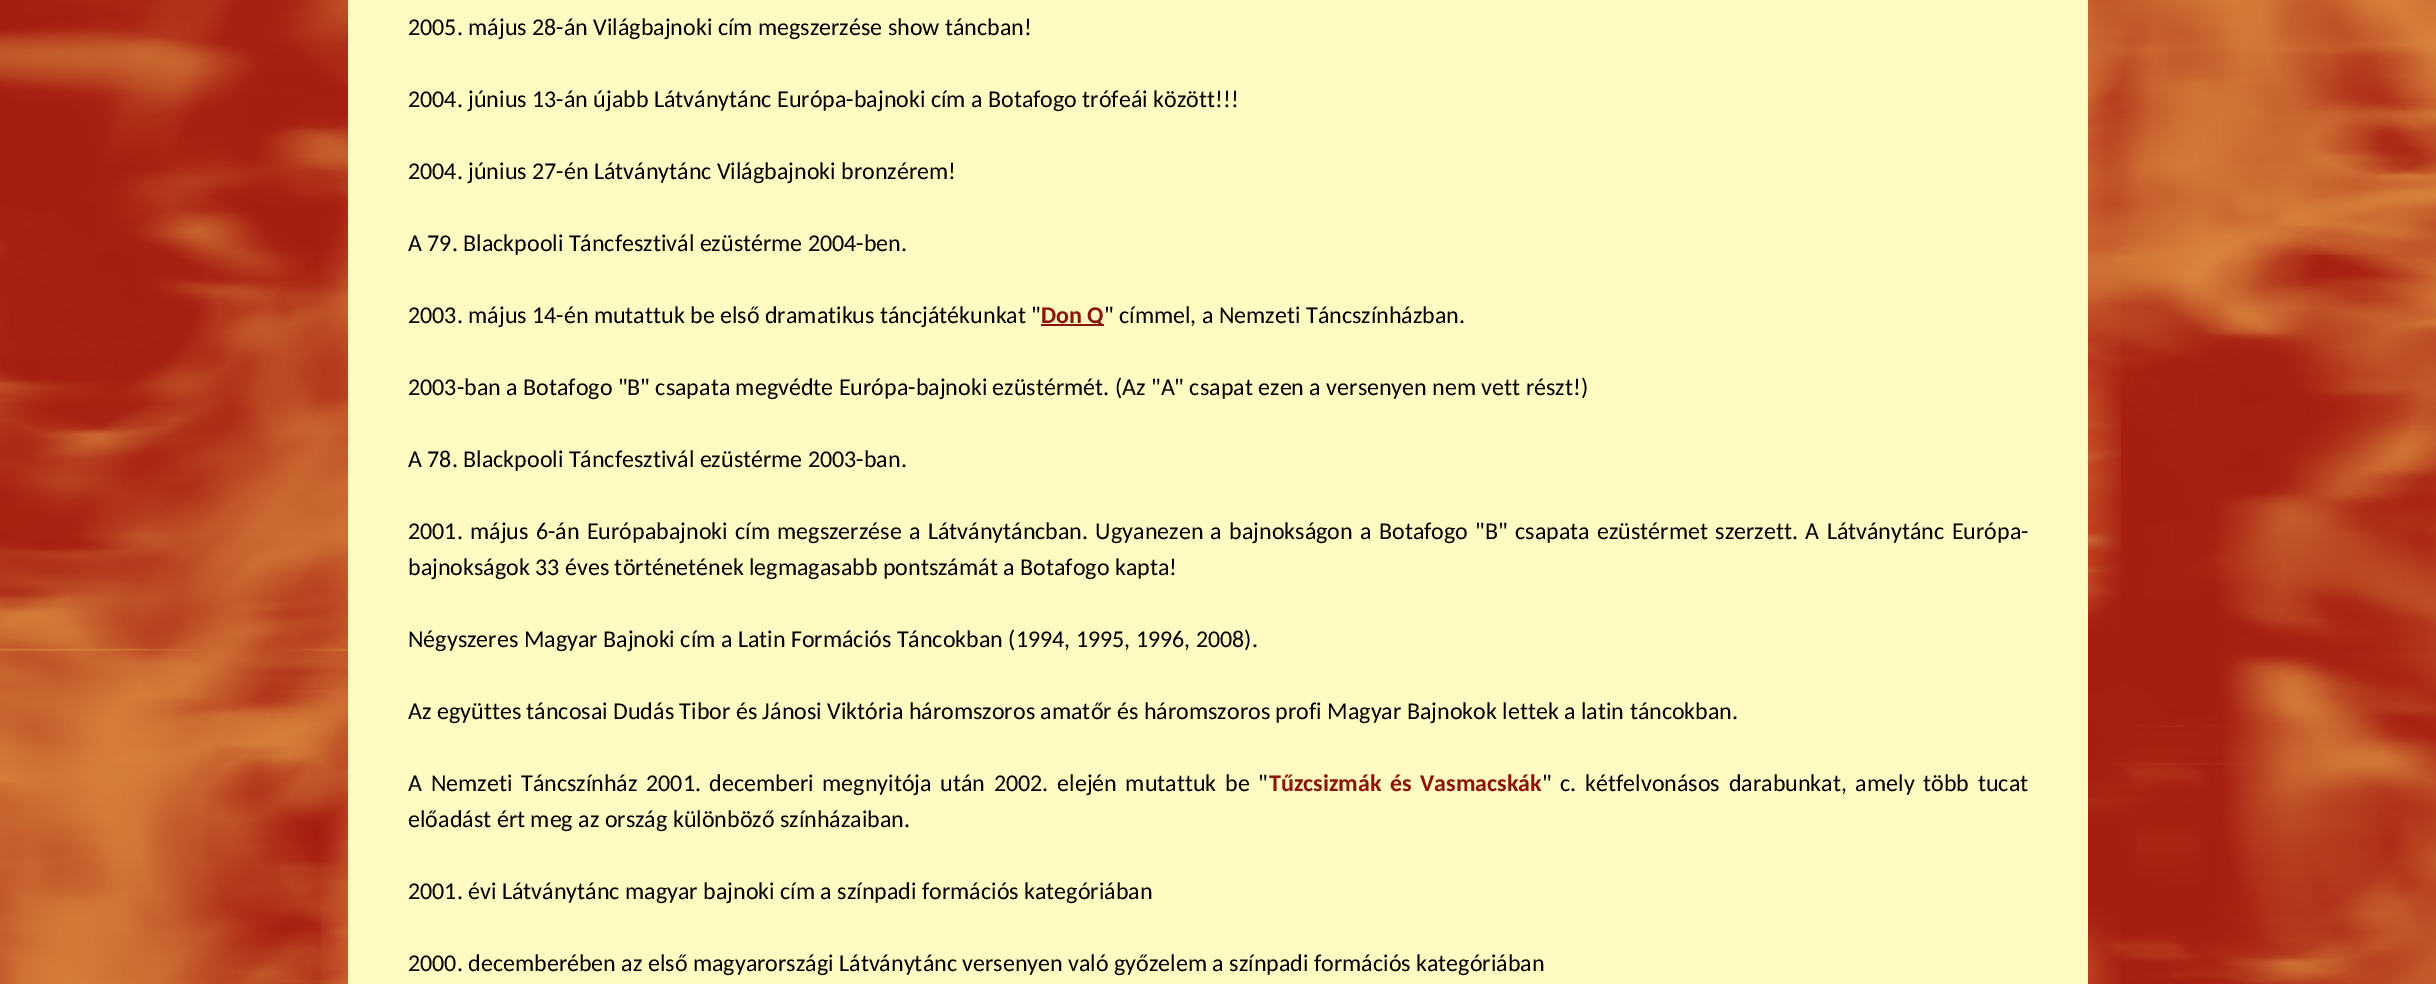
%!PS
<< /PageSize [2436 984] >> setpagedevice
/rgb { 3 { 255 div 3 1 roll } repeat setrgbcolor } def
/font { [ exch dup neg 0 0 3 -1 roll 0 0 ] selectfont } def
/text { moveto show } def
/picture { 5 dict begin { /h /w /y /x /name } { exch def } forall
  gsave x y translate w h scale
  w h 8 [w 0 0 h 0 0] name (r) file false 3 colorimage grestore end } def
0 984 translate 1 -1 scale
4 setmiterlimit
255 255 255 rgb
0 0 2436 984 rectfill
(img_01.rgb) 0 0 2436 984 picture
255 250 193 rgb
348 0 1740 984 rectfill
139 21 10 rgb
1041 324 63 2 rectfill
/Carlito-Regular 24 font
0 0 0 rgb
(2005. május 28-án Világbajnoki cím megszerzése show táncban!) 408 35 text
(2004. június 13-án újabb Látványtánc Európa-bajnoki cím a Botafogo trófeái között!!!) 408 107 text
(2004. június 27-én Látványtánc Világbajnoki bronzérem!) 408 179 text
(A 79. Blackpooli Táncfesztivál ezüstérme 2004-ben.) 408 251 text
(2003. május 14-én mutattuk be első dramatikus táncjátékunkat ") 408 323 text
/Carlito-Bold 24 font
139 21 10 rgb
(Don Q) 1041 323 text
/Carlito-Regular 24 font
0 0 0 rgb
(" címmel, a Nemzeti Táncszínházban.) 1104 323 text
(2003-ban a Botafogo "B" csapata megvédte Európa-bajnoki ezüstérmét. \(Az "A" csapat ezen a versenyen nem vett részt!\)) 408 395 text
(A 78. Blackpooli Táncfesztivál ezüstérme 2003-ban.) 408 467 text
408 539 moveto 1.9 0 32 (2001. május 6-án Európabajnoki cím megszerzése a Látványtáncban. Ugyanezen a bajnokságon a Botafogo "B" csapata ezüstérmet szerzett. A Látványtánc Európa-) widthshow
(bajnokságok 33 éves történetének legmagasabb pontszámát a Botafogo kapta!) 408 575 text
(Négyszeres Magyar Bajnoki cím a Latin Formációs Táncokban \(1994, 1995, 1996, 2008\).) 408 647 text
(Az együttes táncosai Dudás Tibor és Jánosi Viktória háromszoros amatőr és háromszoros profi Magyar Bajnokok lettek a latin táncokban.) 408 719 text
408 791 moveto 3.25 0 32 (A Nemzeti Táncszínház 2001. decemberi megnyitója után 2002. elején mutattuk be ") widthshow
/Carlito-Bold 24 font
139 21 10 rgb
1269 791 moveto 3.25 0 32 (Tűzcsizmák és Vasmacskák) widthshow
/Carlito-Regular 24 font
0 0 0 rgb
1542 791 moveto 3.25 0 32 (" c. kétfelvonásos darabunkat, amely több tucat) widthshow
(előadást ért meg az ország különböző színházaiban.) 408 827 text
(2001. évi Látványtánc magyar bajnoki cím a színpadi formációs kategóriában) 408 899 text
(2000. decemberében az első magyarországi Látványtánc versenyen való győzelem a színpadi formációs kategóriában) 408 971 text
showpage
